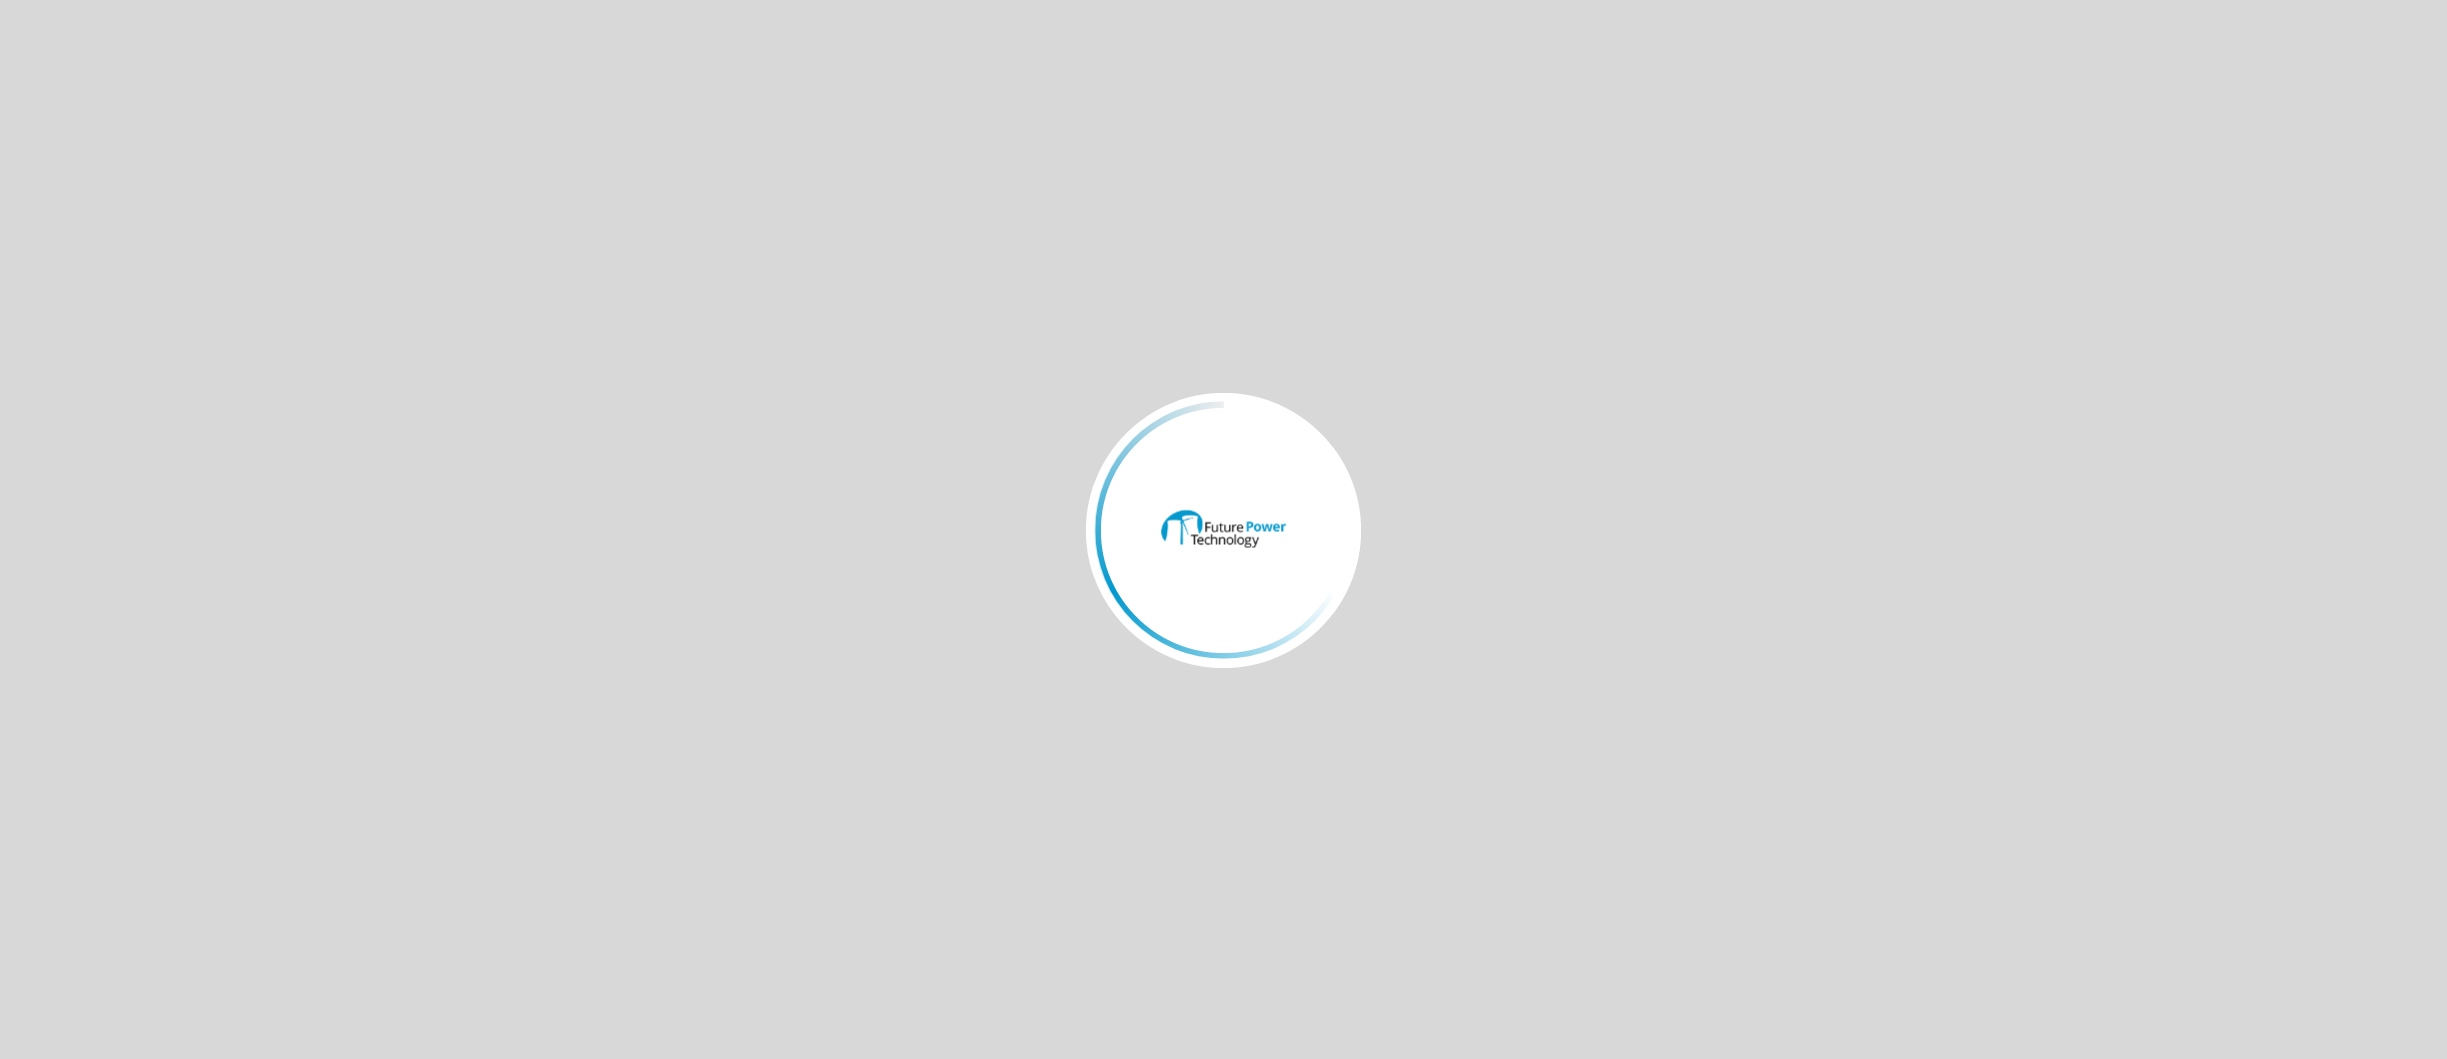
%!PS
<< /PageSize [2447 1059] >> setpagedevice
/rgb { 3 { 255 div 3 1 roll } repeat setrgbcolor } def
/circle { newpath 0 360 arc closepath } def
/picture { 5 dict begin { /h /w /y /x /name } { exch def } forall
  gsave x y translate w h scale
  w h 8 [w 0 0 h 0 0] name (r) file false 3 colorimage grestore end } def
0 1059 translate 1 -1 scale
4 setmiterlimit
216 216 216 rgb
0 0 2447 1059 rectfill
255 255 255 rgb
1223.5 530.5 137.5 circle fill
(img_01.rgb) 1094 401 239 258 picture
1223.5 530.5 122.5 circle fill
(img_02.rgb) 1161 509 126 40 picture
showpage
